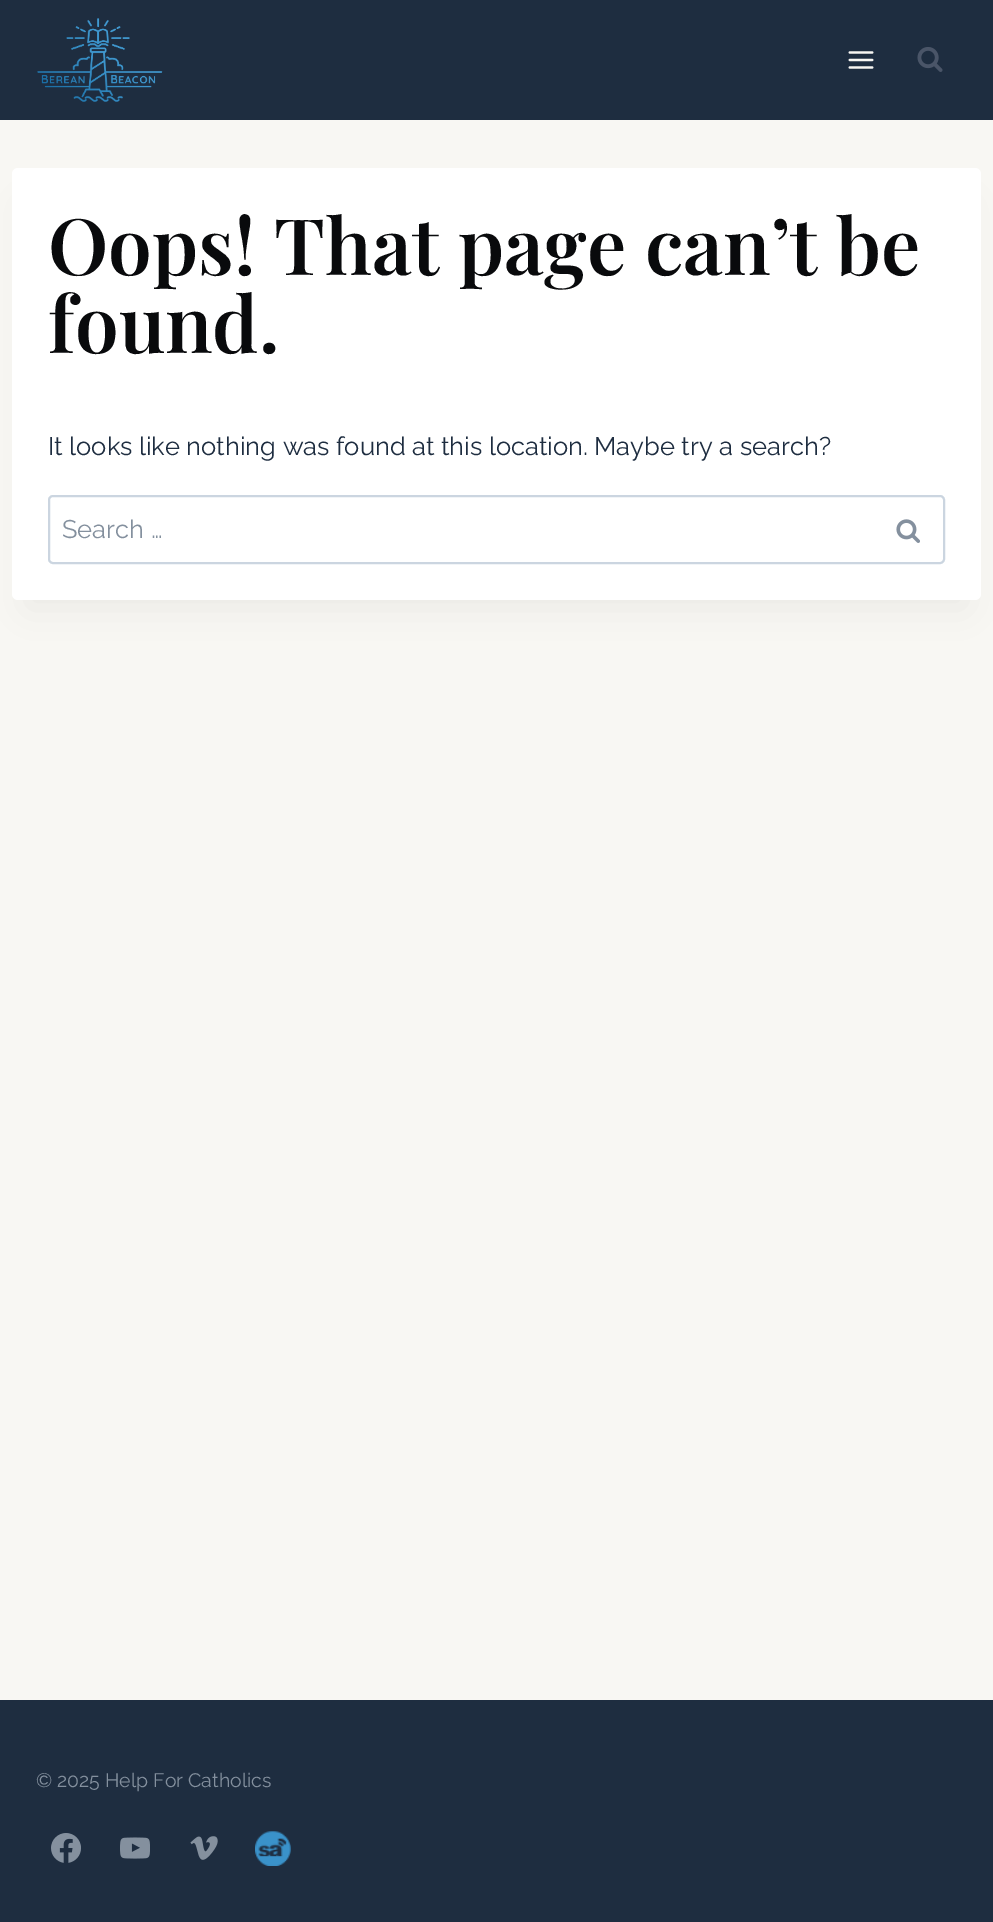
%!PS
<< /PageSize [993 1922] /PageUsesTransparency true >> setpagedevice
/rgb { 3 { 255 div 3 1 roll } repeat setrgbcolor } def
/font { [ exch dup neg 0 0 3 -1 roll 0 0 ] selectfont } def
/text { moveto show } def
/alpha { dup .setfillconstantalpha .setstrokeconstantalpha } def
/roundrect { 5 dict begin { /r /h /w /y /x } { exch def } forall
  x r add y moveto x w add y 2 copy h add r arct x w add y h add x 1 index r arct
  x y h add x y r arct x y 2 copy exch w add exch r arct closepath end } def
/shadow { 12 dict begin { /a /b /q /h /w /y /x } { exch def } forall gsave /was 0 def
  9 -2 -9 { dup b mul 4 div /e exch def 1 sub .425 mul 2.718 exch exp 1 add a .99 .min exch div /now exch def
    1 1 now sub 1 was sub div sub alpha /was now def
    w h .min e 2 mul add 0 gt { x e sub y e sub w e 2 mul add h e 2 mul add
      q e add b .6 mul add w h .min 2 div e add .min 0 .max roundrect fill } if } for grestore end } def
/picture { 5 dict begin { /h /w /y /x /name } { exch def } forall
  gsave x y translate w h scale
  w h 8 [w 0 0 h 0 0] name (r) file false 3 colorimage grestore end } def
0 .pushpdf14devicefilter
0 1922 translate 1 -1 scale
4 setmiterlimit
248 247 243 rgb
0 0 993 1922 rectfill
30 45 64 rgb
0 0 993 120 rectfill
(img_01.rgb) 37 18 126 84 picture
(img_02.rgb) 848 51 26 18 picture
(img_03.rgb) 917 47 26 25 picture
0 0 0 rgb
27 206 939 402 0 19 0.05 shadow
255 255 255 rgb
12 168 969 432 6 roundrect fill
203 213 224 rgb
2 setlinewidth
49 496 895 67 4 roundrect stroke
(img_04.rgb) 896 519 24 24 picture
30 45 64 rgb
0 1700 993 222 rectfill
(img_05.rgb) 51 1833 30 30 picture
(img_06.rgb) 120 1837 30 22 picture
(img_07.rgb) 190 1836 28 24 picture
(img_08.rgb) 255 1831 36 35 picture
/PlayfairDisplay-SemiBold 78 font
9 10 12 rgb
(Oops! That page can’t be) 48 275 text
(found.) 48 353 text
/Raleway-Regular 25.5 font
30 45 64 rgb
(It looks like nothing was found at this location. Maybe try a search?) 48 455 text
132 144 158 rgb
(Search …) 62 538 text
/Raleway-Regular 19.5 font
(© 2025 Help For Catholics) 36 1787 text
.poppdf14devicefilter showpage
